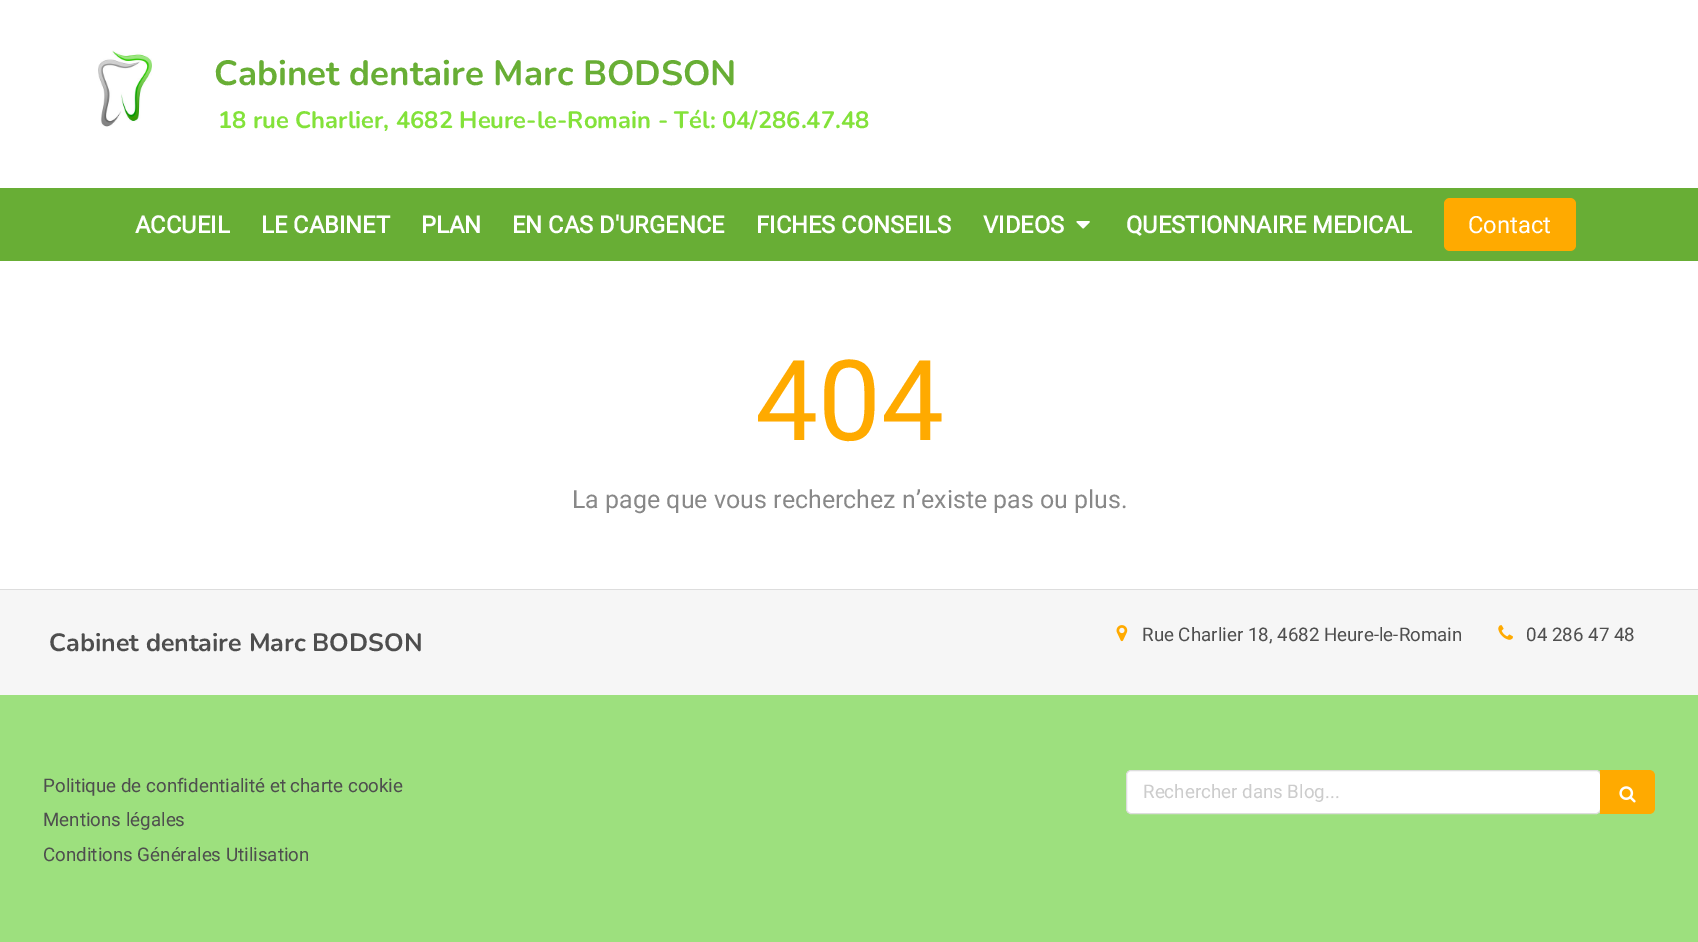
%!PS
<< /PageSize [1698 942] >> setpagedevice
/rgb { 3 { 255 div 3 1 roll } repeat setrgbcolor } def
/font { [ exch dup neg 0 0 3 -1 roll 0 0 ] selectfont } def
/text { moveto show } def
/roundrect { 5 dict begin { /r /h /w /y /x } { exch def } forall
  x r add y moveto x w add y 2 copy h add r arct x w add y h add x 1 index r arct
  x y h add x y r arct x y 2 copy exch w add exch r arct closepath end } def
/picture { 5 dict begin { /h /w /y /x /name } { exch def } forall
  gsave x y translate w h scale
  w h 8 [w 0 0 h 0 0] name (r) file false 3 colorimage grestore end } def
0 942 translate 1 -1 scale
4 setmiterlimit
255 255 255 rgb
0 0 1698 942 rectfill
(img_01.rgb) 98 50 54 77 picture
104 174 53 rgb
0 188 1698 73 rectfill
(img_02.rgb) 1076 221 14 8 picture
255 170 0 rgb
1444 198 132 53 6 roundrect fill
221 221 221 rgb
0 589 1698 1 rectfill
246 246 246 rgb
0 590 1698 105 rectfill
(img_03.rgb) 1116 625 12 17 picture
(img_04.rgb) 1498 625 15 15 picture
157 224 126 rgb
0 695 1698 247 rectfill
255 255 255 rgb
1126.5 770.5 474 43 4.5 roundrect gsave fill grestore
221 221 221 rgb
stroke
255 170 0 rgb
1600 770 moveto 49 0 rlineto 3.5 0 6 2.5 6 6 rcurveto 0 32 rlineto 0 3.5 -2.5 6 -6 6 rcurveto -49 0 rlineto closepath fill
(img_05.rgb) 1619 786 17 17 picture
/Nunito-Bold 35 font
104 174 53 rgb
(Cabinet dentaire Marc BODSON) 214 85 text
/Nunito-Bold 23.75 font
131 226 58 rgb
(18 rue Charlier, 4682 Heure-le-Romain - Tél: 04/286.47.48) 218 128 text
/Roboto-Bold 23.75 font
255 255 255 rgb
(ACCUEIL) 135 233 text
(LE CABINET) 261 233 text
(PLAN) 421 233 text
(EN CAS D'URGENCE) 512 233 text
(FICHES CONSEILS) 756 233 text
(VIDEOS) 983 233 text
(QUESTIONNAIRE MEDICAL) 1126 233 text
/Roboto-Regular 23.75 font
(Contact) 1468 233 text
/Roboto-Regular 112 font
255 170 0 rgb
(404) 755 440 text
/Roboto-Regular 25 font
136 136 136 rgb
(La page que vous recherchez n’existe pas ou plus.) 572 508 text
/Nunito-Bold 25 font
78 78 78 rgb
(Cabinet dentaire Marc BODSON) 49 651 text
/Roboto-Regular 18.75 font
(Rue Charlier 18, 4682 Heure-le-Romain) 1142 641 text
(04 286 47 48) 1526 641 text
(Politique de confidentialité et charte cookie) 43 792 text
(Mentions légales) 43 826 text
(Conditions Générales Utilisation) 43 861 text
204 204 204 rgb
(Rechercher dans Blog...) 1143 798 text
showpage
